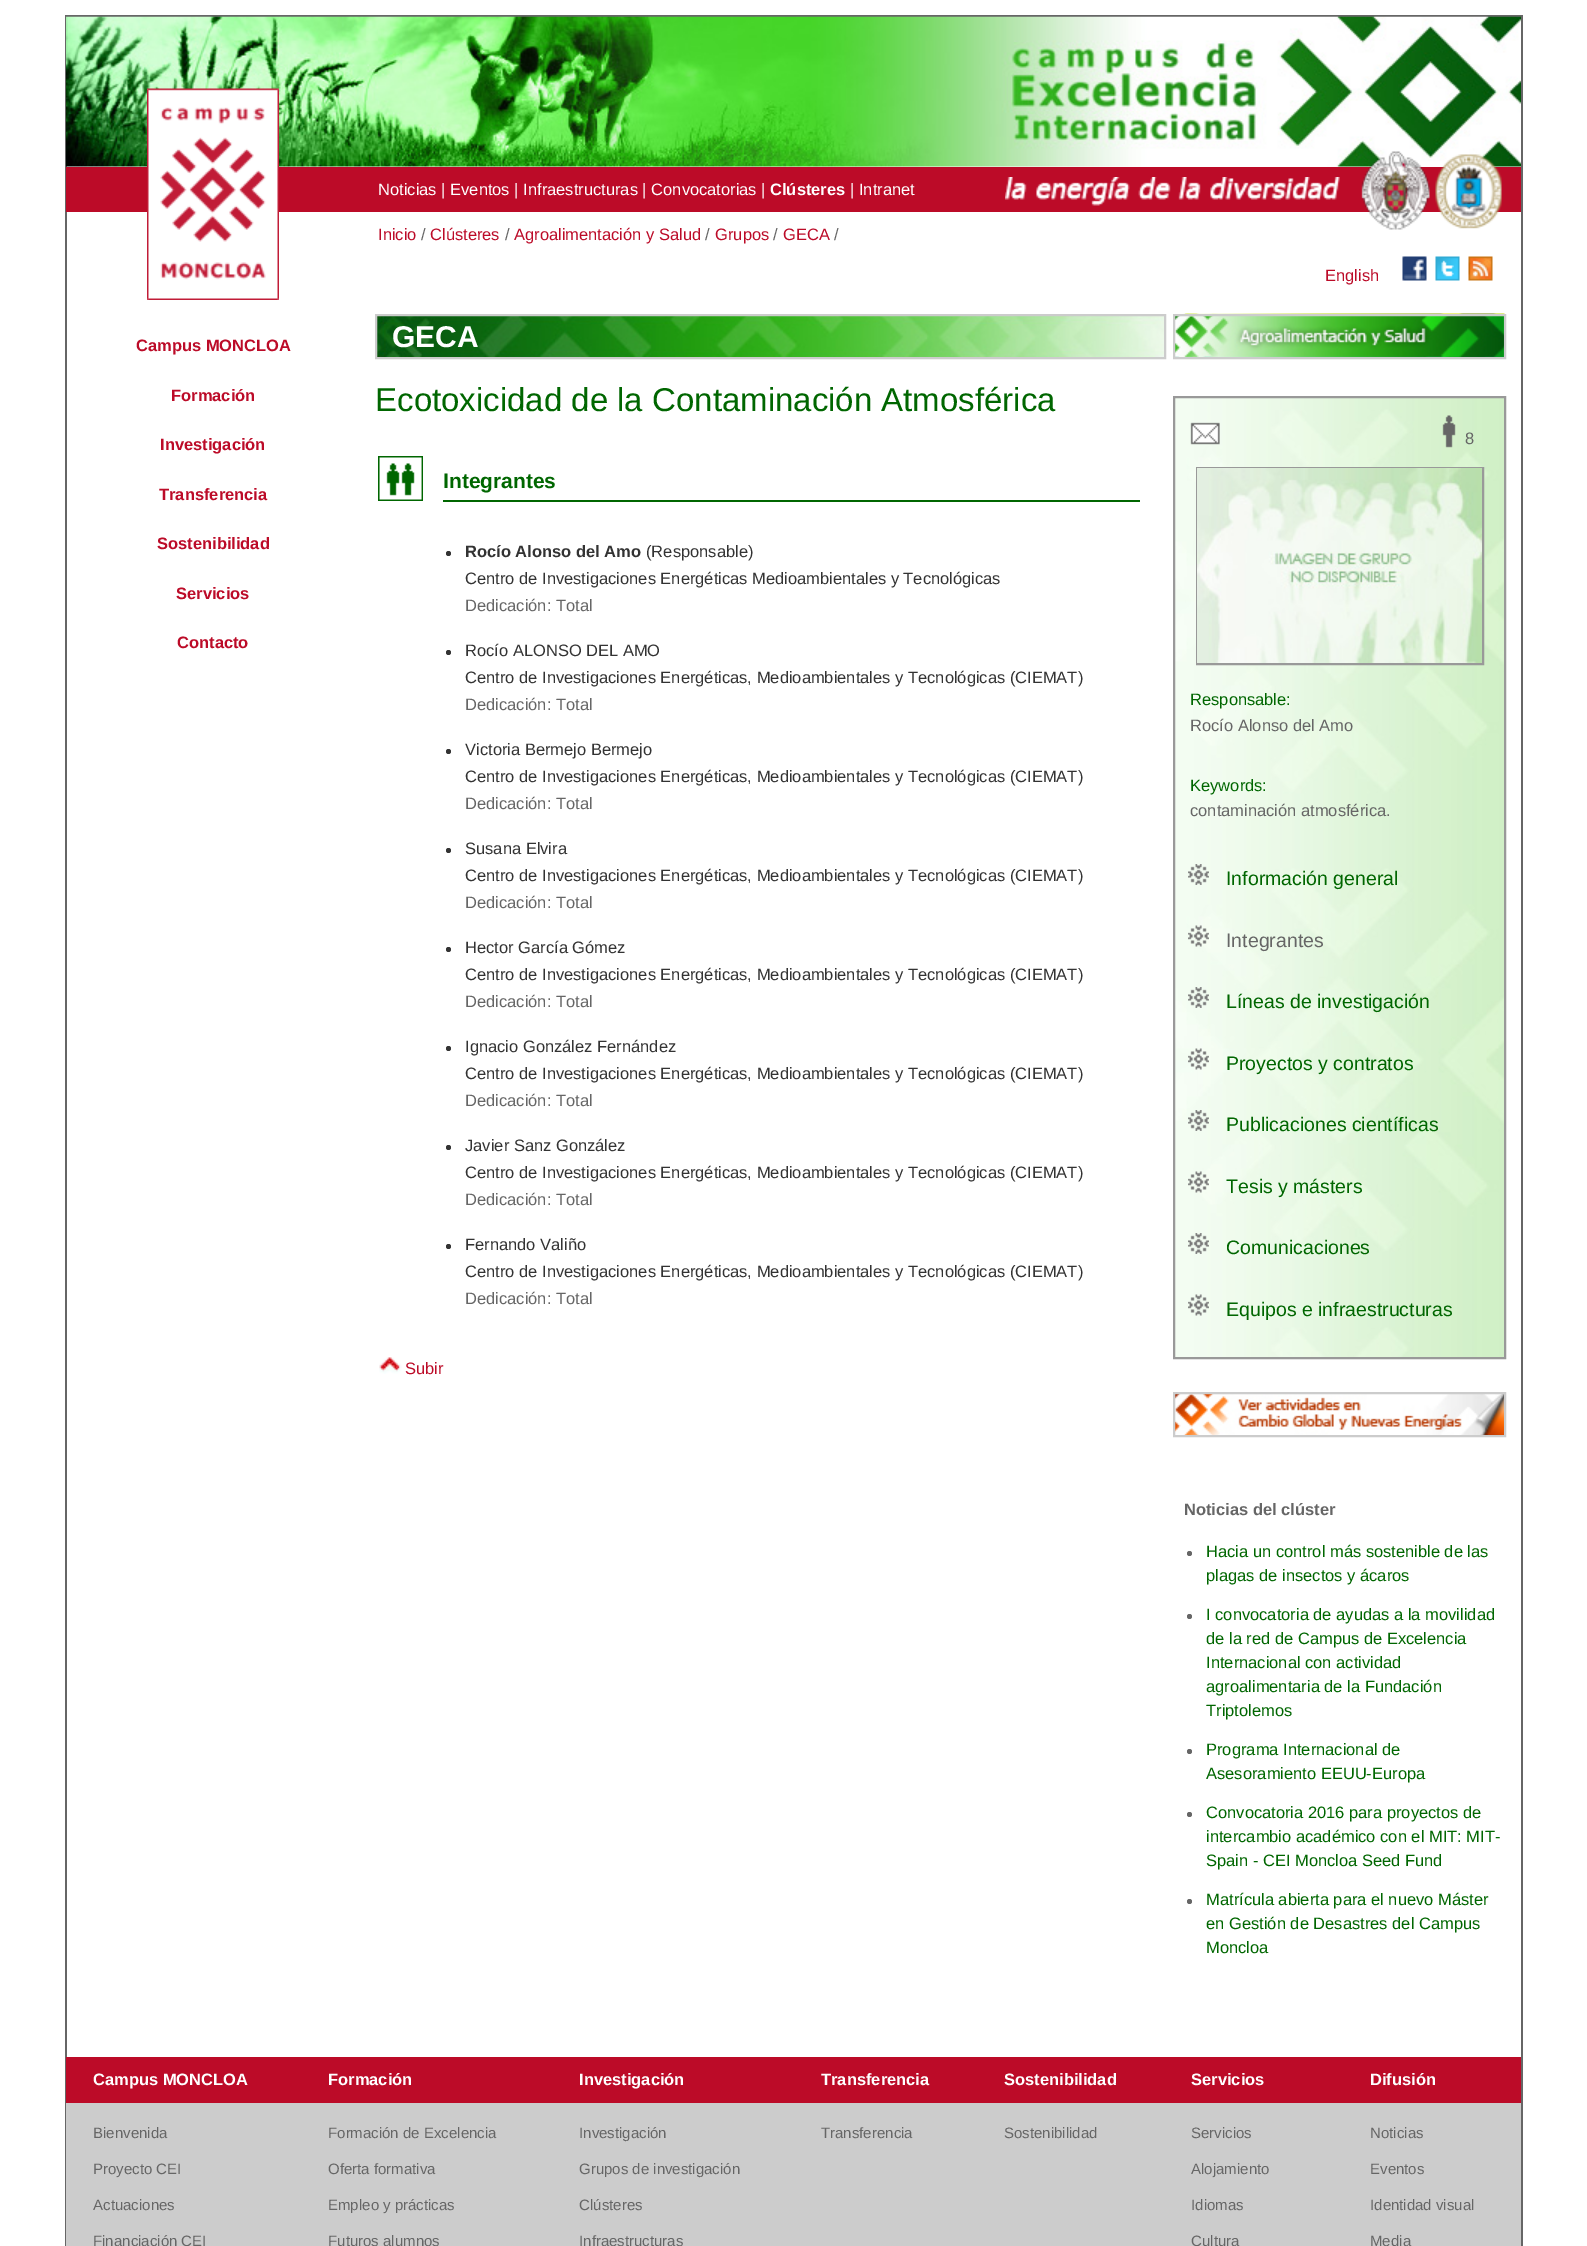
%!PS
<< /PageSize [1587 2246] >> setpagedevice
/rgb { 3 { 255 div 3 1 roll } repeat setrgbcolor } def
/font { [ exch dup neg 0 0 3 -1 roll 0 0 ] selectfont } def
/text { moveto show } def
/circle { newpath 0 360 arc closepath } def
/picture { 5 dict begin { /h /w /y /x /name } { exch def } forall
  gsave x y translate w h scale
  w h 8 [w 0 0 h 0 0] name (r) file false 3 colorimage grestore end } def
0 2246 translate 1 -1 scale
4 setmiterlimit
255 255 255 rgb
0 0 1587 2246 rectfill
102 102 102 rgb
65 15 1458 2 rectfill
1521 15 2 2231 rectfill
65 15 2 2231 rectfill
(img_01.rgb) 66 16 1455 151 picture
188 11 40 rgb
66 167 1455 45 rectfill
(img_02.rgb) 147 88 132 212 picture
(img_03.rgb) 1005 177 335 29 picture
(img_04.rgb) 1361 151 69 79 picture
(img_05.rgb) 1435 154 67 75 picture
(img_06.rgb) 1402 256 25 25 picture
(img_07.rgb) 1435 256 25 25 picture
(img_08.rgb) 1468 256 25 25 picture
(img_09.rgb) 377 316 787 41 picture
204 204 204 rgb
2 setlinewidth
376 315 789 43 rectstroke
(img_10.rgb) 1174 313 332 44 picture
1174 315 331 43 rectstroke
(img_11.rgb) 378 456 45 45 picture
0 102 0 rgb
443 500 697 2 rectfill
51 51 51 rgb
448.5 553.5 2.5 circle fill
448.5 652.5 2.5 circle fill
448.5 751.5 2.5 circle fill
448.5 850.5 2.5 circle fill
448.5 949.5 2.5 circle fill
448.5 1048.5 2.5 circle fill
448.5 1147.5 2.5 circle fill
448.5 1246.5 2.5 circle fill
(img_12.rgb) 379 1357 23 17 picture
(img_13.rgb) 1175 398 329 959 picture
153 153 153 rgb
1174 397 331 961 rectstroke
(img_14.rgb) 1190 422 30 23 picture
(img_15.rgb) 1442 415 14 33 picture
1197 468 286 196 rectstroke
(img_16.rgb) 1197 468 285 195 picture
(img_17.rgb) 1188 864 21 21 picture
(img_18.rgb) 1188 925 21 22 picture
(img_19.rgb) 1188 987 21 21 picture
(img_20.rgb) 1188 1048 21 22 picture
(img_17.rgb) 1188 1110 21 21 picture
(img_21.rgb) 1188 1171 21 22 picture
(img_17.rgb) 1188 1233 21 21 picture
(img_22.rgb) 1188 1294 21 22 picture
(img_23.rgb) 1175 1394 329 41 picture
204 204 204 rgb
1174 1393 331 43 rectstroke
102 102 102 rgb
1189.5 1553.5 2.5 circle fill
1189.5 1616.5 2.5 circle fill
1189.5 1751.5 2.5 circle fill
1189.5 1814.5 2.5 circle fill
1189.5 1901.5 2.5 circle fill
204 204 204 rgb
66 2103 1455 143 rectfill
188 11 40 rgb
66 2057 1455 46 rectfill
/LiberationSans-Regular 16.5 font
255 255 255 rgb
(Noticias | Eventos | Infraestructuras | Convocatorias |) 378 195 text
/LiberationSans-Bold 16.5 font
(Clústeres) 770 195 text
/LiberationSans-Regular 16.5 font
(| Intranet) 850 195 text
188 11 40 rgb
(Inicio) 378 240 text
102 102 102 rgb
(/) 421 240 text
188 11 40 rgb
(Clústeres) 430 240 text
102 102 102 rgb
(/) 505 240 text
188 11 40 rgb
(Agroalimentación y Salud) 514 240 text
102 102 102 rgb
(/) 705 240 text
188 11 40 rgb
(Grupos) 715 240 text
102 102 102 rgb
(/) 773 240 text
188 11 40 rgb
(GECA) 783 240 text
102 102 102 rgb
(/) 834 240 text
188 11 40 rgb
(English) 1325 281 text
/LiberationSans-Bold 16.5 font
(Campus MONCLOA) 136 351 text
(Formación) 171 401 text
(Investigación) 160 450 text
(Transferencia) 159 500 text
(Sostenibilidad) 157 549 text
(Servicios) 176 599 text
(Contacto) 177 648 text
/LiberationSans-Bold 30 font
255 255 255 rgb
(GECA) 392 347 text
/LiberationSans-Regular 33 font
0 102 0 rgb
(Ecotoxicidad de la Contaminación Atmosférica) 375 411 text
/LiberationSans-Bold 21 font
(Integrantes) 443 488 text
/LiberationSans-Bold 16.5 font
51 51 51 rgb
(Rocío Alonso del Amo) 465 557 text
/LiberationSans-Regular 16.5 font
(\(Responsable\)) 646 557 text
(Centro de Investigaciones Energéticas Medioambientales y Tecnológicas) 465 584 text
102 102 102 rgb
(Dedicación: Total) 465 611 text
51 51 51 rgb
(Rocío ALONSO DEL AMO) 465 656 text
(Centro de Investigaciones Energéticas, Medioambientales y Tecnológicas \(CIEMAT\)) 465 683 text
102 102 102 rgb
(Dedicación: Total) 465 710 text
51 51 51 rgb
(Victoria Bermejo Bermejo) 465 755 text
(Centro de Investigaciones Energéticas, Medioambientales y Tecnológicas \(CIEMAT\)) 465 782 text
102 102 102 rgb
(Dedicación: Total) 465 809 text
51 51 51 rgb
(Susana Elvira) 465 854 text
(Centro de Investigaciones Energéticas, Medioambientales y Tecnológicas \(CIEMAT\)) 465 881 text
102 102 102 rgb
(Dedicación: Total) 465 908 text
51 51 51 rgb
(Hector García Gómez) 465 953 text
(Centro de Investigaciones Energéticas, Medioambientales y Tecnológicas \(CIEMAT\)) 465 980 text
102 102 102 rgb
(Dedicación: Total) 465 1007 text
51 51 51 rgb
(Ignacio González Fernández) 465 1052 text
(Centro de Investigaciones Energéticas, Medioambientales y Tecnológicas \(CIEMAT\)) 465 1079 text
102 102 102 rgb
(Dedicación: Total) 465 1106 text
51 51 51 rgb
(Javier Sanz González) 465 1151 text
(Centro de Investigaciones Energéticas, Medioambientales y Tecnológicas \(CIEMAT\)) 465 1178 text
102 102 102 rgb
(Dedicación: Total) 465 1205 text
51 51 51 rgb
(Fernando Valiño) 465 1250 text
(Centro de Investigaciones Energéticas, Medioambientales y Tecnológicas \(CIEMAT\)) 465 1277 text
102 102 102 rgb
(Dedicación: Total) 465 1304 text
188 11 40 rgb
(Subir) 405 1374 text
102 102 102 rgb
(8) 1465 444 text
0 102 0 rgb
(Responsable:) 1190 705 text
102 102 102 rgb
(Rocío Alonso del Amo) 1190 731 text
0 102 0 rgb
(Keywords:) 1190 791 text
102 102 102 rgb
(contaminación atmosférica.) 1190 816 text
/LiberationSans-Regular 19.5 font
0 102 0 rgb
(Información general) 1226 885 text
102 102 102 rgb
(Integrantes) 1226 947 text
0 102 0 rgb
(Líneas de investigación) 1226 1008 text
(Proyectos y contratos) 1226 1070 text
(Publicaciones científicas) 1226 1131 text
(Tesis y másters) 1226 1193 text
(Comunicaciones) 1226 1254 text
(Equipos e infraestructuras) 1226 1316 text
/LiberationSans-Bold 16.5 font
102 102 102 rgb
(Noticias del clúster) 1184 1515 text
/LiberationSans-Regular 16.5 font
0 102 0 rgb
(Hacia un control más sostenible de las) 1206 1557 text
(plagas de insectos y ácaros) 1206 1581 text
(I convocatoria de ayudas a la movilidad) 1206 1620 text
(de la red de Campus de Excelencia) 1206 1644 text
(Internacional con actividad) 1206 1668 text
(agroalimentaria de la Fundación) 1206 1692 text
(Triptolemos) 1206 1716 text
(Programa Internacional de) 1206 1755 text
(Asesoramiento EEUU-Europa) 1206 1779 text
(Convocatoria 2016 para proyectos de) 1206 1818 text
(intercambio académico con el MIT: MIT-) 1206 1842 text
(Spain - CEI Moncloa Seed Fund) 1206 1866 text
(Matrícula abierta para el nuevo Máster) 1206 1905 text
(en Gestión de Desastres del Campus) 1206 1929 text
(Moncloa) 1206 1953 text
/LiberationSans-Bold 16.5 font
255 255 255 rgb
(Campus MONCLOA) 93 2085 text
(Formación) 328 2085 text
(Investigación) 579 2085 text
(Transferencia) 821 2085 text
(Sostenibilidad) 1004 2085 text
(Servicios) 1191 2085 text
(Difusión) 1370 2085 text
/LiberationSans-Regular 15 font
102 102 102 rgb
(Bienvenida) 93 2138 text
(Formación de Excelencia) 328 2138 text
(Investigación) 579 2138 text
(Transferencia) 821 2138 text
(Sostenibilidad) 1004 2138 text
(Servicios) 1191 2138 text
(Noticias) 1370 2138 text
(Proyecto CEI) 93 2174 text
(Oferta formativa) 328 2174 text
(Grupos de investigación) 579 2174 text
(Alojamiento) 1191 2174 text
(Eventos) 1370 2174 text
(Actuaciones) 93 2210 text
(Empleo y prácticas) 328 2210 text
(Clústeres) 579 2210 text
(Idiomas) 1191 2210 text
(Identidad visual) 1370 2210 text
(Financiación CEI) 93 2246 text
(Futuros alumnos) 328 2246 text
(Infraestructuras) 579 2246 text
(Cultura) 1191 2246 text
(Media) 1370 2246 text
showpage
